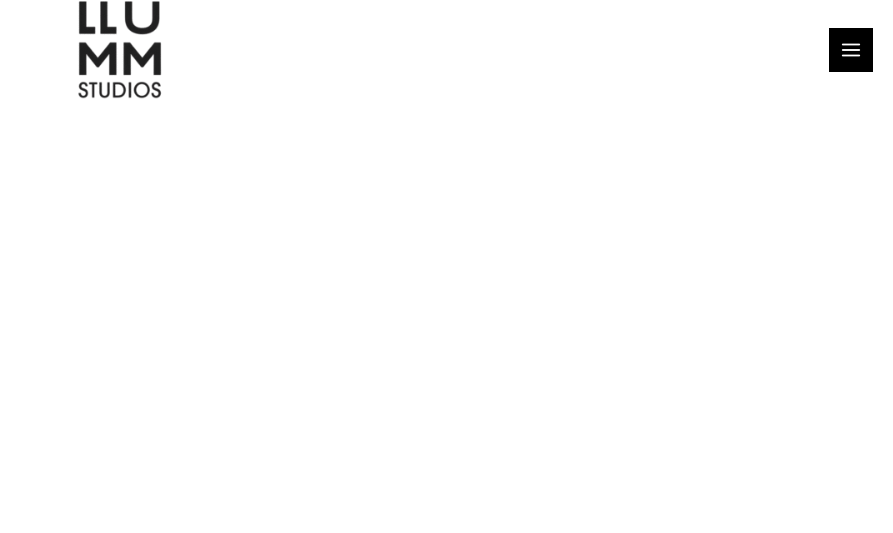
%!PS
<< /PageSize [893 533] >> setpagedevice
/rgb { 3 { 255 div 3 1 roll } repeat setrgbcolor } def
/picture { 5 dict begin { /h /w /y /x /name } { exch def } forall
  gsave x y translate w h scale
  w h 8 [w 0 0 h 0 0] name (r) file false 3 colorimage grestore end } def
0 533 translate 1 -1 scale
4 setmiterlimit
255 255 255 rgb
0 0 893 533 rectfill
(img_01.rgb) 78 1 84 98 picture
0 0 0 rgb
829 28 44 44 rectfill
(img_02.rgb) 841 43 20 14 picture
showpage
